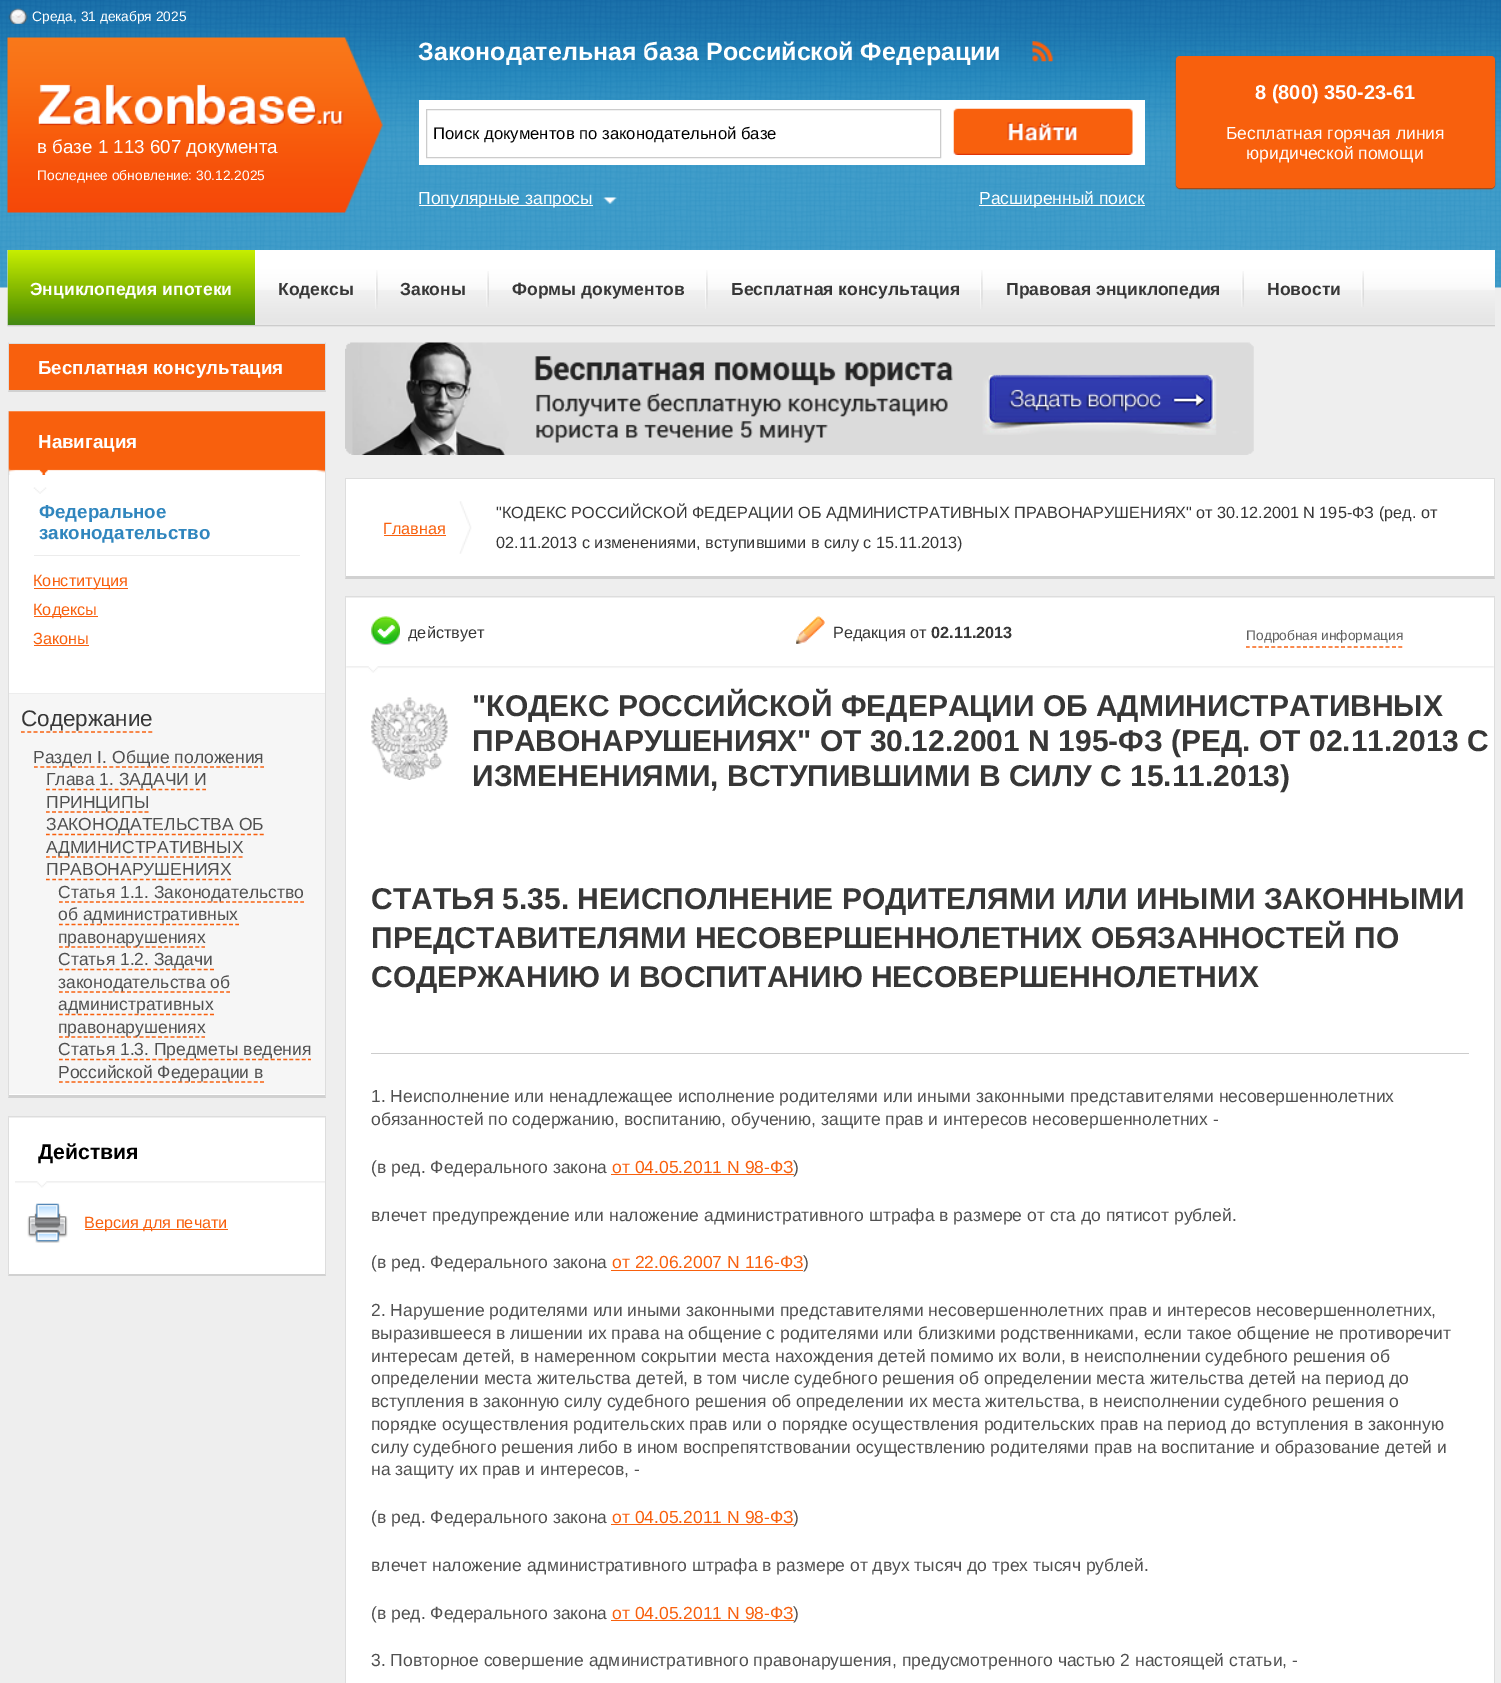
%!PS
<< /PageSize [1501 1683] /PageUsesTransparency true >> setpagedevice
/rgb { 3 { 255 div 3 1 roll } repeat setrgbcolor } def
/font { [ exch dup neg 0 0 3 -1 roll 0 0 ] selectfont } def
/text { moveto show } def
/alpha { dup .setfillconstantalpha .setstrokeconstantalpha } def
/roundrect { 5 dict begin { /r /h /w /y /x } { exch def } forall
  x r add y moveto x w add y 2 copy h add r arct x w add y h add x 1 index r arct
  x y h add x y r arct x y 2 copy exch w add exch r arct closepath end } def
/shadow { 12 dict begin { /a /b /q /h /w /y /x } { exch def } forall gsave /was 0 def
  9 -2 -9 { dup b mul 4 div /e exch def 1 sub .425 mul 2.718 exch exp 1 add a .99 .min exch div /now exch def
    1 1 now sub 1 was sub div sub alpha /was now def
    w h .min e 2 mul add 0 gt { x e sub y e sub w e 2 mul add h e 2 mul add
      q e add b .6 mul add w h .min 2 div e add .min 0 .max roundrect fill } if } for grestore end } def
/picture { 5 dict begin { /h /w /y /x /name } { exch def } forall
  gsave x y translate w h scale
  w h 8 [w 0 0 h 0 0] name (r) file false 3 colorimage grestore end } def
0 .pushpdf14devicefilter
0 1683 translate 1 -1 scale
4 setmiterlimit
238 238 238 rgb
0 0 1501 1683 rectfill
(img_01.rgb) 0 0 1501 288 picture
(img_02.rgb) 8 8 20 16 picture
(img_03.rgb) 1032 41 21 21 picture
255 255 255 rgb
419 100 726 65 rectfill
204 204 204 rgb
426.5 109.5 514 48 rectstroke
(img_04.rgb) 953 108 180 47 picture
173 64 4 rgb
1176 58 319 131 4 0.5 1 shadow
248 96 13 rgb
1176 56 319 132 4 roundrect fill
(img_05.rgb) 7 37 376 176 picture
(img_06.rgb) 603 197 14 7 picture
255 255 255 rgb
419 205 174 1 rectfill
979 205 166 1 rectfill
(img_07.rgb) 7 250 1488 77 picture
204 204 204 rgb
8 325 1487 1 rectfill
(img_08.rgb) 7 250 248 75 picture
(img_09.rgb) 375 270 3 39 picture
(img_10.rgb) 486 271 3 36 picture
(img_09.rgb) 705 270 3 39 picture
(img_09.rgb) 980 270 3 39 picture
(img_10.rgb) 1241 271 3 36 picture
(img_10.rgb) 1361 271 3 36 picture
221 221 221 rgb
8 343 318 1 rectfill
326 342 moveto 0 50 rlineto -1 -2 rlineto 0 -46 rlineto closepath fill
209 209 209 rgb
326 392 moveto -318 0 rlineto 1 -2 rlineto 316 0 rlineto closepath fill
221 221 221 rgb
8 392 moveto 0 -50 rlineto 1 2 rlineto 0 46 rlineto closepath fill
248 96 13 rgb
9 344 316 46 rectfill
255 255 255 rgb
8 411 318 687 rectfill
221 221 221 rgb
326 411 moveto 0 687 rlineto -1 -3 rlineto 0 -684 rlineto closepath fill
209 209 209 rgb
326 1098 moveto -318 0 rlineto 1 -3 rlineto 316 0 rlineto closepath fill
221 221 221 rgb
8 1098 moveto 0 -687 rlineto 1 0 rlineto 0 684 rlineto closepath fill
(img_11.rgb) 8 411 317 64 picture
(img_12.rgb) 33 487 14 7 picture
236 236 236 rgb
34 555 266 1 rectfill
248 96 13 rgb
34 588 94 1 rectfill
34 616 64 1 rectfill
34 645 55 1 rectfill
246 246 246 rgb
9 694 316 400 rectfill
237 237 237 rgb
9 693 316 1 rectfill
248 96 13 rgb
1.2 setlinewidth
[3.75 2.62] 0 setdash
21 732 moveto 131.5 0 rlineto stroke
[3.75 2.54] 0 setdash
34 767 moveto 230 0 rlineto stroke
[3.75 2.5] 0 setdash
46 789.5 moveto 160 0 rlineto stroke
[3.75 2.42] 0 setdash
46 812 moveto 103 0 rlineto stroke
[3.75 2.54] 0 setdash
46 834.5 moveto 218 0 rlineto stroke
[3.75 2.46] 0 setdash
46 857 moveto 196.5 0 rlineto stroke
[3.75 2.5] 0 setdash
46 879.5 moveto 185 0 rlineto stroke
[3.75 2.44] 0 setdash
59 902 moveto 245 0 rlineto stroke
[3.75 2.55] 0 setdash
59 924.5 moveto 180 0 rlineto stroke
[3.75 2.45] 0 setdash
59 947 moveto 146 0 rlineto stroke
[3.75 2.55] 0 setdash
59 969.5 moveto 155 0 rlineto stroke
[3.75 2.45] 0 setdash
59 992 moveto 171 0 rlineto stroke
[3.75 2.55] 0 setdash
59 1014.5 moveto 155 0 rlineto stroke
[3.75 2.45] 0 setdash
59 1037 moveto 146 0 rlineto stroke
[3.75 2.48] 0 setdash
59 1059.5 moveto 252 0 rlineto stroke
[3.75 2.54] 0 setdash
59 1082 moveto 205 0 rlineto stroke
255 255 255 rgb
9 1118 316 156 rectfill
221 221 221 rgb
8 1116 318 1 rectfill
326 1116 moveto 0 160 rlineto -1 -2 rlineto 0 -156 rlineto closepath fill
209 209 209 rgb
326 1276 moveto -318 0 rlineto 1 -2 rlineto 316 0 rlineto closepath fill
221 221 221 rgb
8 1276 moveto 0 -160 rlineto 1 2 rlineto 0 156 rlineto closepath fill
(img_13.rgb) 15 1181 310 7 picture
(img_14.rgb) 27 1203 41 40 picture
248 96 13 rgb
85 1229 143 1 rectfill
(img_15.rgb) 345 342 909 113 picture
255 255 255 rgb
346 479 1148 97 rectfill
221 221 221 rgb
345 478 1150 1 rectfill
1495 478 moveto 0 101 rlineto -1 -3 rlineto 0 -97 rlineto closepath fill
209 209 209 rgb
1495 579 moveto -1150 0 rlineto 1 -3 rlineto 1148 0 rlineto closepath fill
221 221 221 rgb
345 579 moveto 0 -101 rlineto 1 1 rlineto 0 97 rlineto closepath fill
(img_16.rgb) 459 501 13 53 picture
248 96 13 rgb
384 535 62 1 rectfill
255 255 255 rgb
346 598 1148 1085 rectfill
221 221 221 rgb
345 596 1150 1 rectfill
1495 596 moveto 0 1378 rlineto -1 -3 rlineto 0 -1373 rlineto closepath fill
345 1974 moveto 0 -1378 rlineto 1 2 rlineto 0 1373 rlineto closepath fill
(img_17.rgb) 346 666 1148 7 picture
(img_18.rgb) 371 616 29 29 picture
(img_19.rgb) 796 616 29 28 picture
248 96 13 rgb
[3.75 2.6] 0 setdash
1246 647 moveto 156.5 0 rlineto stroke
(img_20.rgb) 371 697 77 83 picture
204 204 204 rgb
371 1053 1098 1 rectfill
248 96 13 rgb
611 1174 183 1 rectfill
611 1270 192 1 rectfill
611 1524 183 1 rectfill
611 1620 183 1 rectfill
/LiberationSans-Regular 13.75 font
255 255 255 rgb
(Среда, 31 декабря 2025) 32 21 text
/LiberationSans-Bold 25 font
(Законодательная база Российской Федерации) 418 60 text
/LiberationSans-Regular 16.7 font
0 0 0 rgb
(Поиск документов по законодательной базе) 433 139 text
/LiberationSans-Bold 20 font
255 255 255 rgb
(8 \(800\) 350-23-61) 1255 99 text
/LiberationSans-Regular 17.5 font
(Бесплатная горячая линия) 1226 139 text
(юридической помощи) 1246 159 text
/LiberationSans-Regular 18.75 font
(в базе 1 113 607 документа) 37 153 text
/LiberationSans-Regular 13.75 font
(Последнее обновление: 30.12.2025) 37 180 text
/LiberationSans-Regular 17.5 font
(Популярные запросы) 418 204 text
(Расширенный поиск) 979 204 text
/LiberationSans-Bold 17.5 font
(Энциклопедия ипотеки) 30 295 text
55 55 55 rgb
(Кодексы) 278 295 text
(Законы) 400 295 text
(Формы документов) 512 295 text
(Бесплатная консультация) 731 295 text
(Правовая энциклопедия) 1006 295 text
(Новости) 1267 295 text
/LiberationSans-Bold 18.75 font
255 255 255 rgb
(Бесплатная консультация) 38 374 text
(Навигация) 38 448 text
48 134 190 rgb
(Федеральное) 39 518 text
(законодательство) 39 539 text
/LiberationSans-Regular 16.25 font
248 96 13 rgb
(Конституция) 33 586 text
(Кодексы) 33 615 text
(Законы) 33 644 text
/LiberationSans-Regular 22.5 font
55 55 55 rgb
(Содержание) 21 726 text
/LiberationSans-Regular 17.5 font
80 80 80 rgb
(Раздел I. Общие положения) 33 763 text
(Глава 1. ЗАДАЧИ И) 46 785 text
(ПРИНЦИПЫ) 46 808 text
(ЗАКОНОДАТЕЛЬСТВА ОБ) 46 830 text
(АДМИНИСТРАТИВНЫХ) 46 853 text
(ПРАВОНАРУШЕНИЯХ) 46 875 text
(Статья 1.1. Законодательство) 58 898 text
(об административных) 58 920 text
(правонарушениях) 58 943 text
(Статья 1.2. Задачи) 58 965 text
(законодательства об) 58 988 text
(административных) 58 1010 text
(правонарушениях) 58 1033 text
(Статья 1.3. Предметы ведения) 58 1055 text
(Российской Федерации в) 58 1078 text
/LiberationSans-Bold 21.25 font
0 0 0 rgb
(Действия) 38 1159 text
/LiberationSans-Regular 16.25 font
248 96 13 rgb
(Версия для печати) 84 1228 text
(Главная) 383 534 text
55 55 55 rgb
("КОДЕКС РОССИЙСКОЙ ФЕДЕРАЦИИ ОБ АДМИНИСТРАТИВНЫХ ПРАВОНАРУШЕНИЯХ" от 30.12.2001 N 195-ФЗ \(ред. от) 496 518 text
(02.11.2013 с изменениями, вступившими в силу с 15.11.2013\)) 496 548 text
(действует) 408 638 text
(Редакция от) 833 638 text
/LiberationSans-Bold 16.25 font
(02.11.2013) 931 638 text
/LiberationSans-Regular 13.75 font
95 95 95 rgb
(Подробная информация) 1246 640 text
/LiberationSans-Bold 30 font
55 55 55 rgb
("КОДЕКС РОССИЙСКОЙ ФЕДЕРАЦИИ ОБ АДМИНИСТРАТИВНЫХ) 472 716 text
(ПРАВОНАРУШЕНИЯХ" ОТ 30.12.2001 N 195-ФЗ \(РЕД. ОТ 02.11.2013 С) 472 751 text
(ИЗМЕНЕНИЯМИ, ВСТУПИВШИМИ В СИЛУ С 15.11.2013\)) 472 786 text
(СТАТЬЯ 5.35. НЕИСПОЛНЕНИЕ РОДИТЕЛЯМИ ИЛИ ИНЫМИ ЗАКОННЫМИ) 371 909 text
(ПРЕДСТАВИТЕЛЯМИ НЕСОВЕРШЕННОЛЕТНИХ ОБЯЗАННОСТЕЙ ПО) 371 948 text
(СОДЕРЖАНИЮ И ВОСПИТАНИЮ НЕСОВЕРШЕННОЛЕТНИХ) 371 987 text
/LiberationSans-Regular 17.5 font
80 80 80 rgb
(1. Неисполнение или ненадлежащее исполнение родителями или иными законными представителями несовершеннолетних) 371 1102 text
(обязанностей по содержанию, воспитанию, обучению, защите прав и интересов несовершеннолетних -) 371 1125 text
(\(в ред. Федерального закона) 371 1173 text
248 96 13 rgb
(от 04.05.2011 N 98-ФЗ) 612 1173 text
80 80 80 rgb
(\)) 793 1173 text
(влечет предупреждение или наложение административного штрафа в размере от ста до пятисот рублей.) 371 1221 text
(\(в ред. Федерального закона) 371 1268 text
248 96 13 rgb
(от 22.06.2007 N 116-ФЗ) 612 1268 text
80 80 80 rgb
(\)) 803 1268 text
(2. Нарушение родителями или иными законными представителями несовершеннолетних прав и интересов несовершеннолетних,) 371 1316 text
(выразившееся в лишении их права на общение с родителями или близкими родственниками, если такое общение не противоречит) 371 1339 text
(интересам детей, в намеренном сокрытии места нахождения детей помимо их воли, в неисполнении судебного решения об) 371 1362 text
(определении места жительства детей, в том числе судебного решения об определении места жительства детей на период до) 371 1384 text
(вступления в законную силу судебного решения об определении их места жительства, в неисполнении судебного решения о) 371 1407 text
(порядке осуществления родительских прав или о порядке осуществления родительских прав на период до вступления в законную) 371 1430 text
(силу судебного решения либо в ином воспрепятствовании осуществлению родителями прав на воспитание и образование детей и) 371 1453 text
(на защиту их прав и интересов, -) 371 1475 text
(\(в ред. Федерального закона) 371 1523 text
248 96 13 rgb
(от 04.05.2011 N 98-ФЗ) 612 1523 text
80 80 80 rgb
(\)) 793 1523 text
(влечет наложение административного штрафа в размере от двух тысяч до трех тысяч рублей.) 371 1571 text
(\(в ред. Федерального закона) 371 1619 text
248 96 13 rgb
(от 04.05.2011 N 98-ФЗ) 612 1619 text
80 80 80 rgb
(\)) 793 1619 text
(3. Повторное совершение административного правонарушения, предусмотренного частью 2 настоящей статьи, -) 371 1666 text
.poppdf14devicefilter showpage
